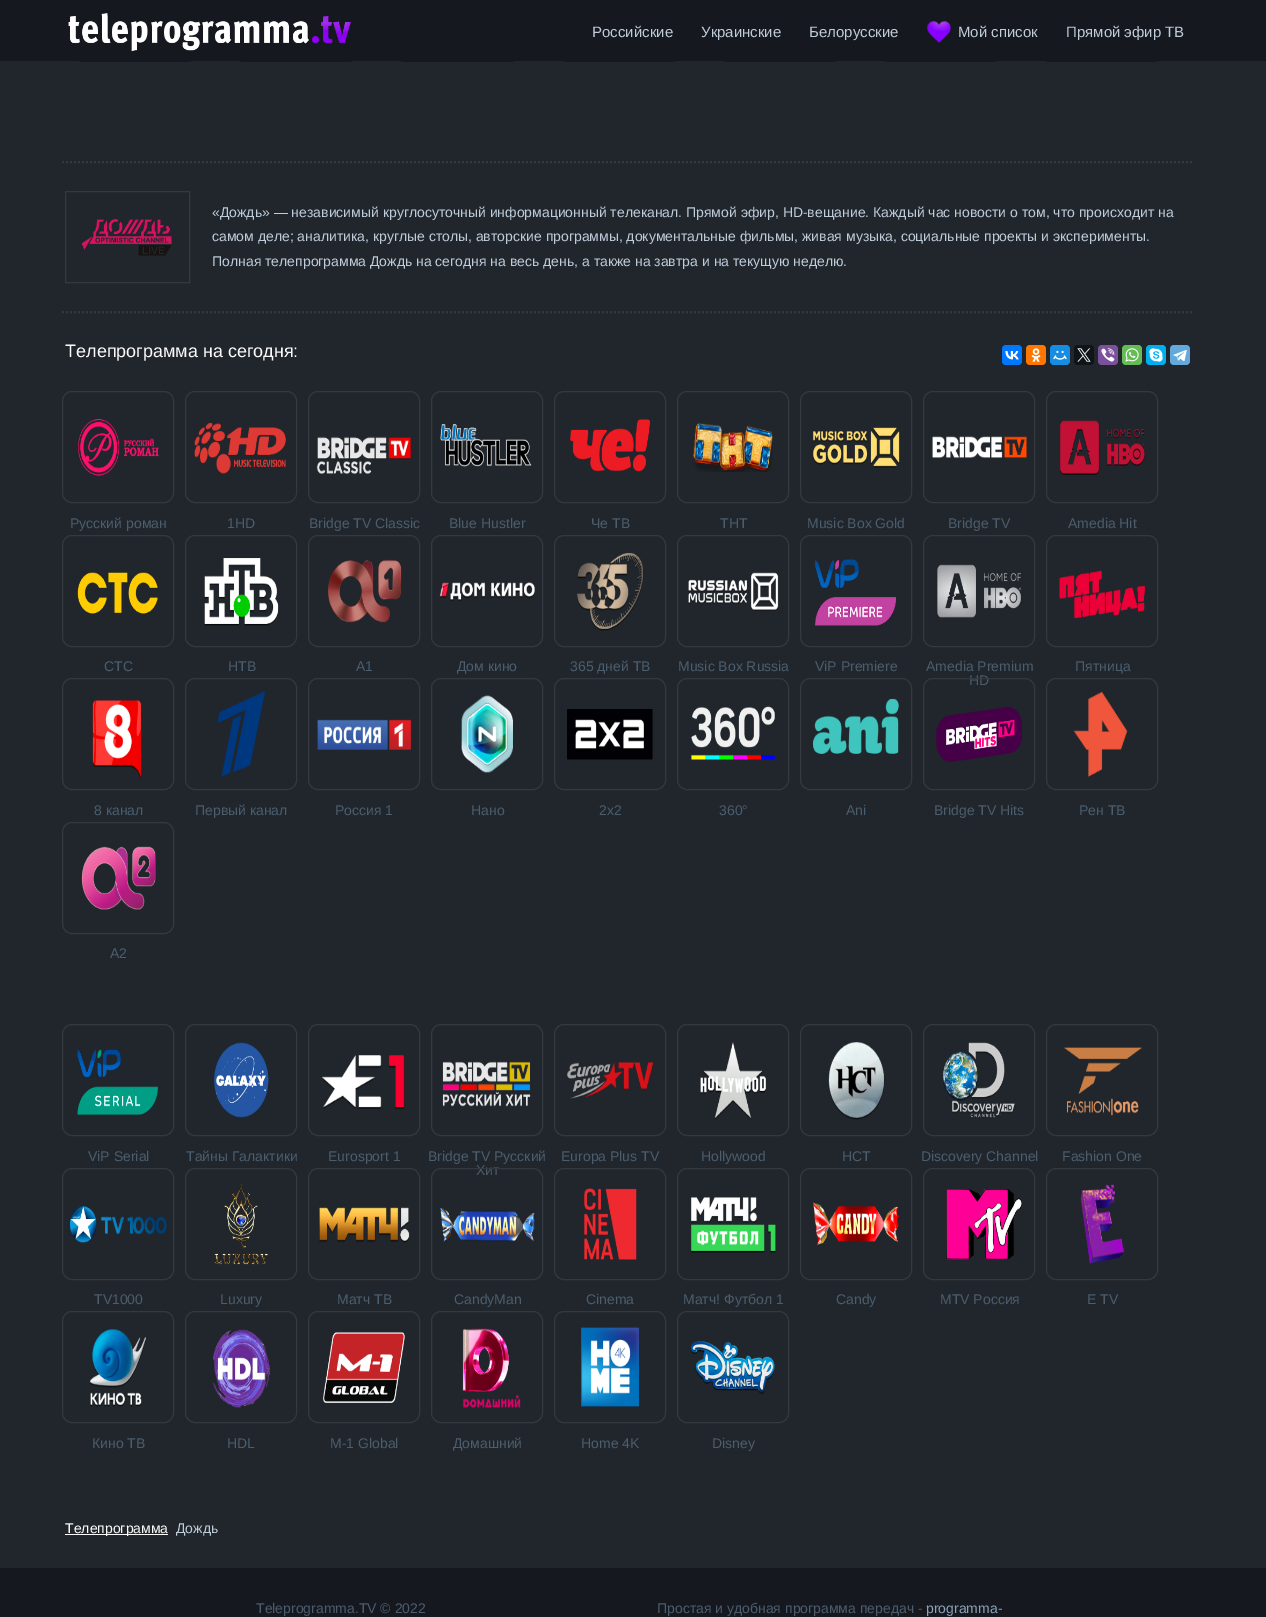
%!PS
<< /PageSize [1266 1617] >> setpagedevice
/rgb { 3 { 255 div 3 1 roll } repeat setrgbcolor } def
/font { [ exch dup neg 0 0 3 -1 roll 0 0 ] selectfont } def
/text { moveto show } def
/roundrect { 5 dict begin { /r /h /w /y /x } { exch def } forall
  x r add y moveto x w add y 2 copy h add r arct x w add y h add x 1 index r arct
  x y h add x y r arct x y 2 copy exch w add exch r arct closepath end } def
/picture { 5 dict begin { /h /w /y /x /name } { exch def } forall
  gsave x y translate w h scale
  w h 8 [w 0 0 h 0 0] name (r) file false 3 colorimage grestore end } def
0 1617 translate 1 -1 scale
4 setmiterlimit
32 38 44 rgb
0 0 1266 1617 rectfill
21 24 30 rgb
62 16 146 46 23 roundrect fill
223 16 146 46 23 roundrect fill
384 16 147 46 23 roundrect fill
546 16 146 46 23 roundrect fill
707 16 146 46 23 roundrect fill
868 16 146 46 23 roundrect fill
1029 16 146 46 23 roundrect fill
0 0 1266 61 rectfill
(img_01.rgb) 68 13 283 39 picture
(img_02.rgb) 927 20 24 23 picture
51 57 63 rgb
2 setlinewidth
[2 2] 0 setdash
62 162 moveto 1131 0 rlineto stroke
1 setlinewidth
[] 0 setdash
65.5 191.5 124 91 rectstroke
(img_03.rgb) 81 218 91 38 picture
2 setlinewidth
[2 2] 0 setdash
62 312 moveto 1131 0 rlineto stroke
0 119 255 rgb
1002 345 20 20 4 roundrect fill
(img_04.rgb) 1005 351 14 9 picture
255 119 0 rgb
1026 345 20 20 4 roundrect fill
(img_05.rgb) 1031 348 10 14 picture
22 141 226 rgb
1050 345 20 20 4 roundrect fill
(img_06.rgb) 1053 350 14 10 picture
15 20 25 rgb
1074 345 20 20 4 roundrect fill
(img_07.rgb) 1077 348 14 14 picture
123 81 157 rgb
1098 345 20 20 4 roundrect fill
(img_08.rgb) 1101 348 14 14 picture
101 188 84 rgb
1122 345 20 20 4 roundrect fill
(img_09.rgb) 1125 348 14 14 picture
0 175 240 rgb
1146 345 20 20 4 roundrect fill
(img_10.rgb) 1149 348 14 14 picture
100 169 220 rgb
1170 345 20 20 4 roundrect fill
(img_11.rgb) 1173 350 14 12 picture
51 57 63 rgb
1 setlinewidth
[] 0 setdash
62.5 391.5 111 111 9.5 roundrect stroke
(img_12.rgb) 78 419 81 57 picture
185.5 391.5 111 111 9.5 roundrect stroke
(img_13.rgb) 194 422 92 52 picture
308.5 391.5 111 111 9.5 roundrect stroke
(img_14.rgb) 316 436 95 38 picture
431.5 391.5 111 111 9.5 roundrect stroke
(img_15.rgb) 440 423 92 44 picture
554.5 391.5 111 111 9.5 roundrect stroke
(img_16.rgb) 570 419 81 53 picture
677.5 391.5 111 111 9.5 roundrect stroke
(img_17.rgb) 693 423 80 49 picture
800.5 391.5 111 111 9.5 roundrect stroke
(img_18.rgb) 813 427 87 41 picture
923.5 391.5 111 111 9.5 roundrect stroke
(img_19.rgb) 932 436 95 22 picture
1046.5 391.5 111 111 9.5 roundrect stroke
(img_20.rgb) 1060 420 85 55 picture
62.5 535.5 111 111 9.5 roundrect stroke
(img_21.rgb) 77 572 81 42 picture
185.5 535.5 111 111 9.5 roundrect stroke
(img_22.rgb) 204 558 75 68 picture
308.5 535.5 111 111 9.5 roundrect stroke
(img_23.rgb) 327 559 75 64 picture
431.5 535.5 111 111 9.5 roundrect stroke
(img_24.rgb) 439 582 96 19 picture
554.5 535.5 111 111 9.5 roundrect stroke
(img_25.rgb) 577 553 67 78 picture
677.5 535.5 111 111 9.5 roundrect stroke
(img_26.rgb) 688 572 91 39 picture
800.5 535.5 111 111 9.5 roundrect stroke
(img_27.rgb) 815 559 81 67 picture
923.5 535.5 111 111 9.5 roundrect stroke
(img_28.rgb) 937 564 84 54 picture
1046.5 535.5 111 111 9.5 roundrect stroke
(img_29.rgb) 1059 570 86 49 picture
62.5 678.5 111 111 9.5 roundrect stroke
(img_30.rgb) 92 700 50 78 picture
185.5 678.5 111 111 9.5 roundrect stroke
(img_31.rgb) 217 691 49 86 picture
308.5 678.5 111 111 9.5 roundrect stroke
(img_32.rgb) 317 719 95 31 picture
431.5 678.5 111 111 9.5 roundrect stroke
(img_33.rgb) 461 695 52 78 picture
554.5 678.5 111 111 9.5 roundrect stroke
(img_34.rgb) 567 709 86 51 picture
677.5 678.5 111 111 9.5 roundrect stroke
(img_35.rgb) 691 706 84 54 picture
800.5 678.5 111 111 9.5 roundrect stroke
(img_36.rgb) 813 698 86 56 picture
1046.5 678.5 111 111 9.5 roundrect stroke
(img_38.rgb) 1073 691 55 86 picture
62.5 822.5 111 111 9.5 roundrect stroke
(img_39.rgb) 81 846 75 64 picture
62.5 1024.5 111 111 9.5 roundrect stroke
(img_40.rgb) 77 1049 81 66 picture
185.5 1024.5 111 111 9.5 roundrect stroke
(img_41.rgb) 214 1042 55 76 picture
308.5 1024.5 111 111 9.5 roundrect stroke
(img_42.rgb) 322 1055 83 54 picture
431.5 1024.5 111 111 9.5 roundrect stroke
(img_43.rgb) 442 1061 89 46 picture
554.5 1024.5 111 111 9.5 roundrect stroke
(img_44.rgb) 567 1062 86 37 picture
677.5 1024.5 111 111 9.5 roundrect stroke
(img_45.rgb) 700 1042 66 78 picture
800.5 1024.5 111 111 9.5 roundrect stroke
(img_46.rgb) 828 1042 57 78 picture
923.5 1024.5 111 111 9.5 roundrect stroke
(img_47.rgb) 943 1042 72 77 picture
1046.5 1024.5 111 111 9.5 roundrect stroke
(img_48.rgb) 1064 1047 78 69 picture
62.5 1168.5 111 111 9.5 roundrect stroke
(img_49.rgb) 70 1206 97 37 picture
185.5 1168.5 111 111 9.5 roundrect stroke
(img_50.rgb) 214 1183 54 82 picture
308.5 1168.5 111 111 9.5 roundrect stroke
(img_51.rgb) 319 1207 91 36 picture
554.5 1168.5 111 111 9.5 roundrect stroke
(img_53.rgb) 584 1188 53 72 picture
677.5 1168.5 111 111 9.5 roundrect stroke
(img_54.rgb) 691 1197 85 56 picture
800.5 1168.5 111 111 9.5 roundrect stroke
(img_55.rgb) 813 1202 86 44 picture
923.5 1168.5 111 111 9.5 roundrect stroke
(img_56.rgb) 946 1189 76 71 picture
1046.5 1168.5 111 111 9.5 roundrect stroke
(img_57.rgb) 1080 1184 44 80 picture
62.5 1311.5 111 111 9.5 roundrect stroke
(img_58.rgb) 90 1329 56 78 picture
185.5 1311.5 111 111 9.5 roundrect stroke
(img_59.rgb) 213 1329 57 79 picture
308.5 1311.5 111 111 9.5 roundrect stroke
(img_60.rgb) 323 1332 82 71 picture
431.5 1311.5 111 111 9.5 roundrect stroke
(img_61.rgb) 462 1328 59 80 picture
554.5 1311.5 111 111 9.5 roundrect stroke
(img_62.rgb) 581 1327 59 80 picture
677.5 1311.5 111 111 9.5 roundrect stroke
(img_63.rgb) 690 1341 85 53 picture
250 250 250 rgb
65 1534 103 1 rectfill
21 24 30 rgb
0 1568 1266 49 rectfill
/LiberationSans-Regular 15 font
191 204 217 rgb
(Российские) 592 37 text
(Украинские) 701 37 text
(Белорусские) 809 37 text
(Мой список) 958 37 text
(Прямой эфир ТВ) 1066 37 text
/LiberationSans-Regular 14 font
(«Дождь» — независимый круглосуточный информационный телеканал. Прямой эфир, HD-вещание. Каждый час новости о том, что происходит на) 212 217 text
(самом деле; аналитика, круглые столы, авторские программы, документальные фильмы, живая музыка, социальные проекты и эксперименты.) 212 241 text
(Полная телепрограмма Дождь на сегодня на весь день, а также на завтра и на текущую неделю.) 212 266 text
/LiberationSans-Regular 18 font
250 250 250 rgb
(Телепрограмма на сегодня:) 65 357 text
/LiberationSans-Regular 14 font
76 93 110 rgb
(Русский роман) 70 528 text
(1HD) 227 528 text
(Bridge TV Classic) 309 528 text
(Blue Hustler) 449 528 text
(Че ТВ) 591 528 text
(ТНТ) 720 528 text
(Music Box Gold) 807 528 text
(Bridge TV) 948 528 text
(Amedia Hit) 1068 528 text
(СТС) 104 671 text
(НТВ) 228 671 text
(A1) 356 671 text
(Дом кино) 457 671 text
(365 дней ТВ) 570 671 text
(Music Box Russia) 678 671 text
(ViP Premiere) 815 671 text
(Amedia Premium) 926 671 text
(HD) 969 685 text
(Пятница) 1075 671 text
(8 канал) 94 815 text
(Первый канал) 195 815 text
(Россия 1) 335 815 text
(Нано) 471 815 text
(2х2) 599 815 text
(360°) 719 815 text
(Ani) 846 815 text
51 57 63 rgb
923.5 678.5 111 111 9.5 roundrect stroke
(img_37.rgb) 936 707 86 55 picture
76 93 110 rgb
(Bridge TV Hits) 934 815 text
(Рен ТВ) 1079 815 text
(A2) 110 958 text
(ViP Serial) 88 1161 text
(Тайны Галактики) 186 1161 text
(Eurosport 1) 328 1161 text
(Bridge TV Русский) 428 1161 text
(Хит) 476 1175 text
(Europa Plus TV) 561 1161 text
(Hollywood) 701 1161 text
(НСТ) 842 1161 text
(Discovery Channel) 921 1161 text
(Fashion One) 1062 1161 text
(TV1000) 94 1304 text
(Luxury) 220 1304 text
(Матч ТВ) 337 1304 text
51 57 63 rgb
431.5 1168.5 111 111 9.5 roundrect stroke
(img_52.rgb) 440 1207 95 35 picture
76 93 110 rgb
(CandyMan) 454 1304 text
(Cinema) 586 1304 text
(Матч! Футбол 1) 683 1304 text
(Candy) 836 1304 text
(MTV Россия) 940 1304 text
(E TV) 1087 1304 text
(Кино ТВ) 92 1448 text
(HDL) 227 1448 text
(M-1 Global) 330 1448 text
(Домашний) 453 1448 text
(Home 4K) 581 1448 text
(Disney) 712 1448 text
250 250 250 rgb
(Телепрограмма) 65 1533 text
191 204 217 rgb
(Дождь) 176 1533 text
76 93 110 rgb
(Teleprogramma.TV © 2022) 256 1613 text
(Простая и удобная программа передач -) 657 1613 text
140 162 186 rgb
(programma-) 926 1613 text
showpage
